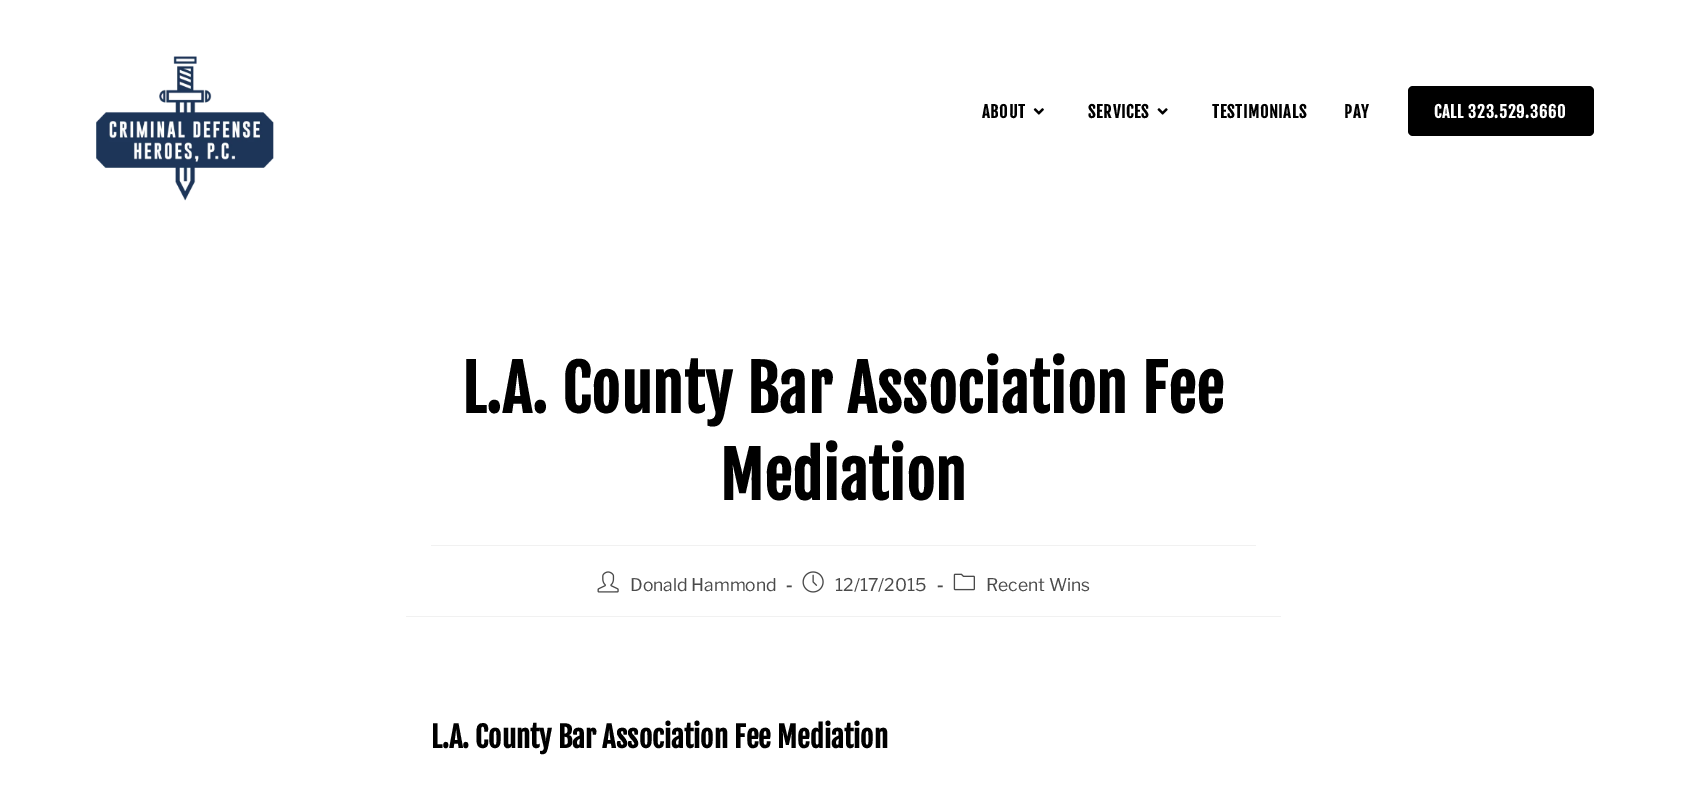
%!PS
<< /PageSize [1687 796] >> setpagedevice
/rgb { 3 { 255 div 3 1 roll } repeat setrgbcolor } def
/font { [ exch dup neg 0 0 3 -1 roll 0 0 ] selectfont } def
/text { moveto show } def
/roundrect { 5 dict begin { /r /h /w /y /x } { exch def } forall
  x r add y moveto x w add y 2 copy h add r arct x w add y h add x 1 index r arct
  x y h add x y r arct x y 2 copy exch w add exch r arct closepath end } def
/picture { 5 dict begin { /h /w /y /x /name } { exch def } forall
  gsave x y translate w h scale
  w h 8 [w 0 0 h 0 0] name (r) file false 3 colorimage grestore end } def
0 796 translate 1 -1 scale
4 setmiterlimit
255 255 255 rgb
0 0 1687 796 rectfill
(img_01.rgb) 96 56 178 145 picture
(img_02.rgb) 1033 108 11 7 picture
(img_03.rgb) 1157 108 11 7 picture
0 0 0 rgb
1408 86 186 50 5 roundrect fill
241 241 241 rgb
431 545 825 1 rectfill
406 616 875 1 rectfill
(img_04.rgb) 597 571 22 22 picture
(img_05.rgb) 802 571 22 22 picture
(img_06.rgb) 953 573 22 18 picture
/FjallaOne-Bold 16.25 font
0 0 0 rgb
982 118 moveto 0.75 0 (ABOUT) ashow
1088 118 moveto 0.75 0 (SERVICES) ashow
1212 118 moveto 0.75 0 (TESTIMONIALS) ashow
1344 118 moveto 0.75 0 (PAY) ashow
255 255 255 rgb
1434 118 moveto 0.75 0 (CALL 323.529.3660) ashow
/FjallaOne-Bold 62.5 font
0 0 0 rgb
462 413 moveto 0.75 0 (L.A. County Bar Association Fee) ashow
720 500 moveto 0.75 0 (Mediation) ashow
/LibreFranklin-Thin 17.5 font
74 74 74 rgb
(Donald Hammond) 630 591 text
/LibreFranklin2-Thin 17.5 font
(-) 786 591 text
/LibreFranklin-Thin 17.5 font
(12/17/2015) 835 591 text
/LibreFranklin2-Thin 17.5 font
(-) 937 591 text
/LibreFranklin-Thin 17.5 font
(Recent Wins) 986 591 text
/FjallaOne-Bold 28.75 font
0 0 0 rgb
(L.A. County Bar Association Fee Mediation) 431 748 text
showpage
